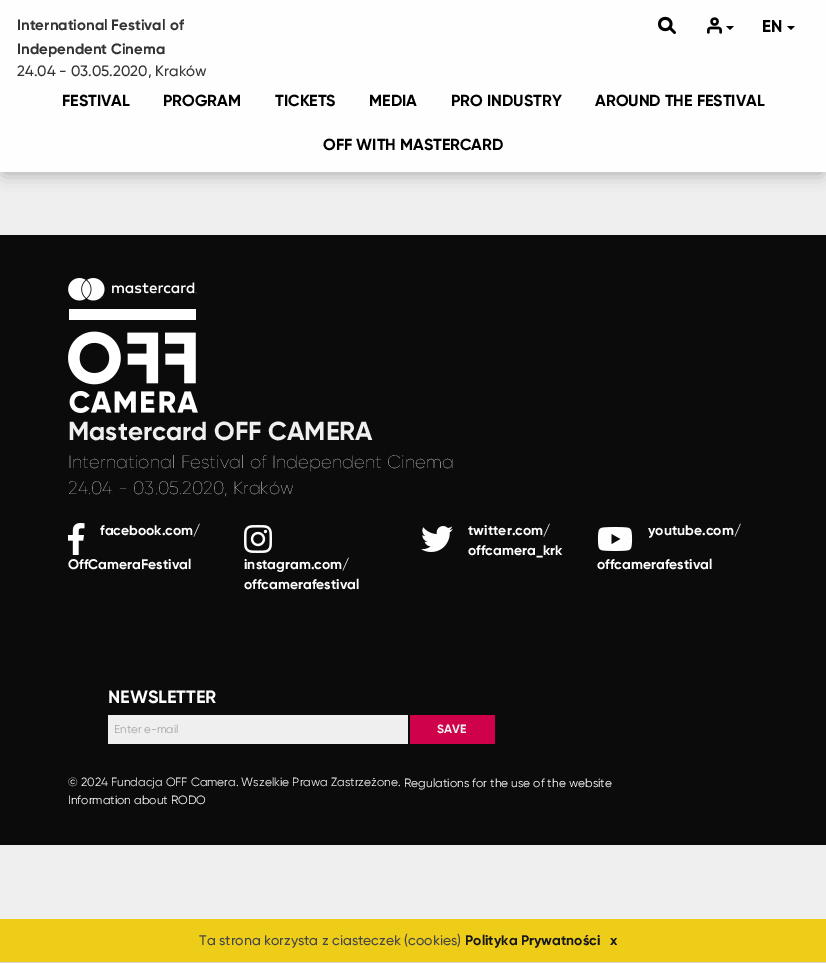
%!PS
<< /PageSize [826 963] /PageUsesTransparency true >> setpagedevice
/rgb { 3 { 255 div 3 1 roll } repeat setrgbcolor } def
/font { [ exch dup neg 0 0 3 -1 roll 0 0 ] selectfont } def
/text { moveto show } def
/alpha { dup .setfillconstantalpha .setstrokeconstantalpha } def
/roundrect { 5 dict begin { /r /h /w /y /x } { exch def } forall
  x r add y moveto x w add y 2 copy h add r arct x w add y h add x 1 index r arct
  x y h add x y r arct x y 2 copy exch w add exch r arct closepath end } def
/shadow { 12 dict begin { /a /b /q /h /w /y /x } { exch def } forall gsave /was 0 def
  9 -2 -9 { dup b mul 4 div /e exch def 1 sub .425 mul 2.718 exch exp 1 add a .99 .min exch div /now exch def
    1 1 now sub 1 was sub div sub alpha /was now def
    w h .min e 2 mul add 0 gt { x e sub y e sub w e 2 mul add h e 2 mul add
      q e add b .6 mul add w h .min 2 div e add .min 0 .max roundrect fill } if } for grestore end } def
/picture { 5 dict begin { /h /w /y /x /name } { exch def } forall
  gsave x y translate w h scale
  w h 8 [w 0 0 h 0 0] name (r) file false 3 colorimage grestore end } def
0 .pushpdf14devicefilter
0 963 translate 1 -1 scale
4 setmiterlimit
239 239 239 rgb
0 0 826 963 rectfill
0 0 0 rgb
4 9 818 164 0 8.5 0.32 shadow
254 254 254 rgb
0 0 826 172 rectfill
0 0 0 rgb
2.8 setlinewidth
1 setlinecap
1 setlinejoin
671 24 moveto 0 7.5 -11.5 7.5 -11.5 0 rcurveto 0 -7.5 11.5 -7.5 11.5 0 rcurveto closepath 669.5 27.5 moveto 5 5 rlineto stroke
(img_01.rgb) 707 17 15 17 picture
726 26 moveto 8 0 rlineto -4 4 rlineto closepath fill
787 26 moveto 8 0 rlineto -4 4 rlineto closepath fill
11 11 11 rgb
0 235 826 610 rectfill
(img_02.rgb) 68 278 130 135 picture
(img_03.rgb) 68 523 17 32 picture
(img_04.rgb) 421 526 32 26 picture
(img_05.rgb) 597 527 36 24 picture
(img_06.rgb) 244 525 28 28 picture
239 239 239 rgb
108 715 300 29 rectfill
206 1 74 rgb
410 715 85 29 rectfill
238 205 24 rgb
0 919 826 43 rectfill
214 211 211 rgb
0 962 826 1 rectfill
/Gilroy-Bold 15 font
51 51 51 rgb
(International Festival) 17 30 text
(of) 170 30 text
(Independent Cinema) 17 54 text
/Gilroy-Medium 15 font
(24.04 - 03.05.2020, Kraków) 17 76 text
/Gilroy-Bold 17 font
0 0 0 rgb
(EN) 762 32 text
/Gilroy-Bold 16 font
(FESTIVAL) 62 106 text
(PROGRAM) 163 106 text
(TICKETS) 275 106 text
(MEDIA) 369 106 text
(PRO INDUSTRY) 451 106 text
(AROUND THE FESTIVAL) 595 106 text
(OFF WITH MASTERCARD) 323 150 text
/Gilroy-Bold 26 font
239 239 239 rgb
(Mastercard OFF CAMERA) 68 440 text
/Gilroy-Thin 18 font
(International Festival of Independent Cinema) 68 468 text
(24.04 - 03.05.2020, Kraków) 68 494 text
/Gilroy-Bold 14 font
254 254 254 rgb
(facebook.com/) 100 535 text
(OffCameraFestival) 68 569 text
(twitter.com/) 468 535 text
(offcamera_krk) 468 555 text
(youtube.com/) 648 535 text
(offcamerafestival) 597 569 text
(instagram.com/) 244 569 text
(offcamerafestival) 244 589 text
/Gilroy-Bold 18 font
(NEWSLETTER) 108 703 text
/Gilroy-Regular 11.5 font
162 162 162 rgb
(Enter e-mail) 114 733 text
/Gilroy-Bold 12 font
239 239 239 rgb
(SAVE) 437 733 text
/Gilroy-Regular 12 font
(© 2024 Fundacja OFF Camera. Wszelkie Prawa Zastrzeżone.) 68 786 text
254 254 254 rgb
(Regulations for the use of the website) 404 787 text
(Information about RODO) 68 804 text
/Gilroy-Medium 14 font
70 70 70 rgb
(Ta strona korzysta z ciasteczek \(cookies\)) 199 945 text
/Gilroy-Bold 14 font
24 24 24 rgb
(Polityka Prywatności) 465 945 text
(x) 610 945 text
.poppdf14devicefilter showpage
